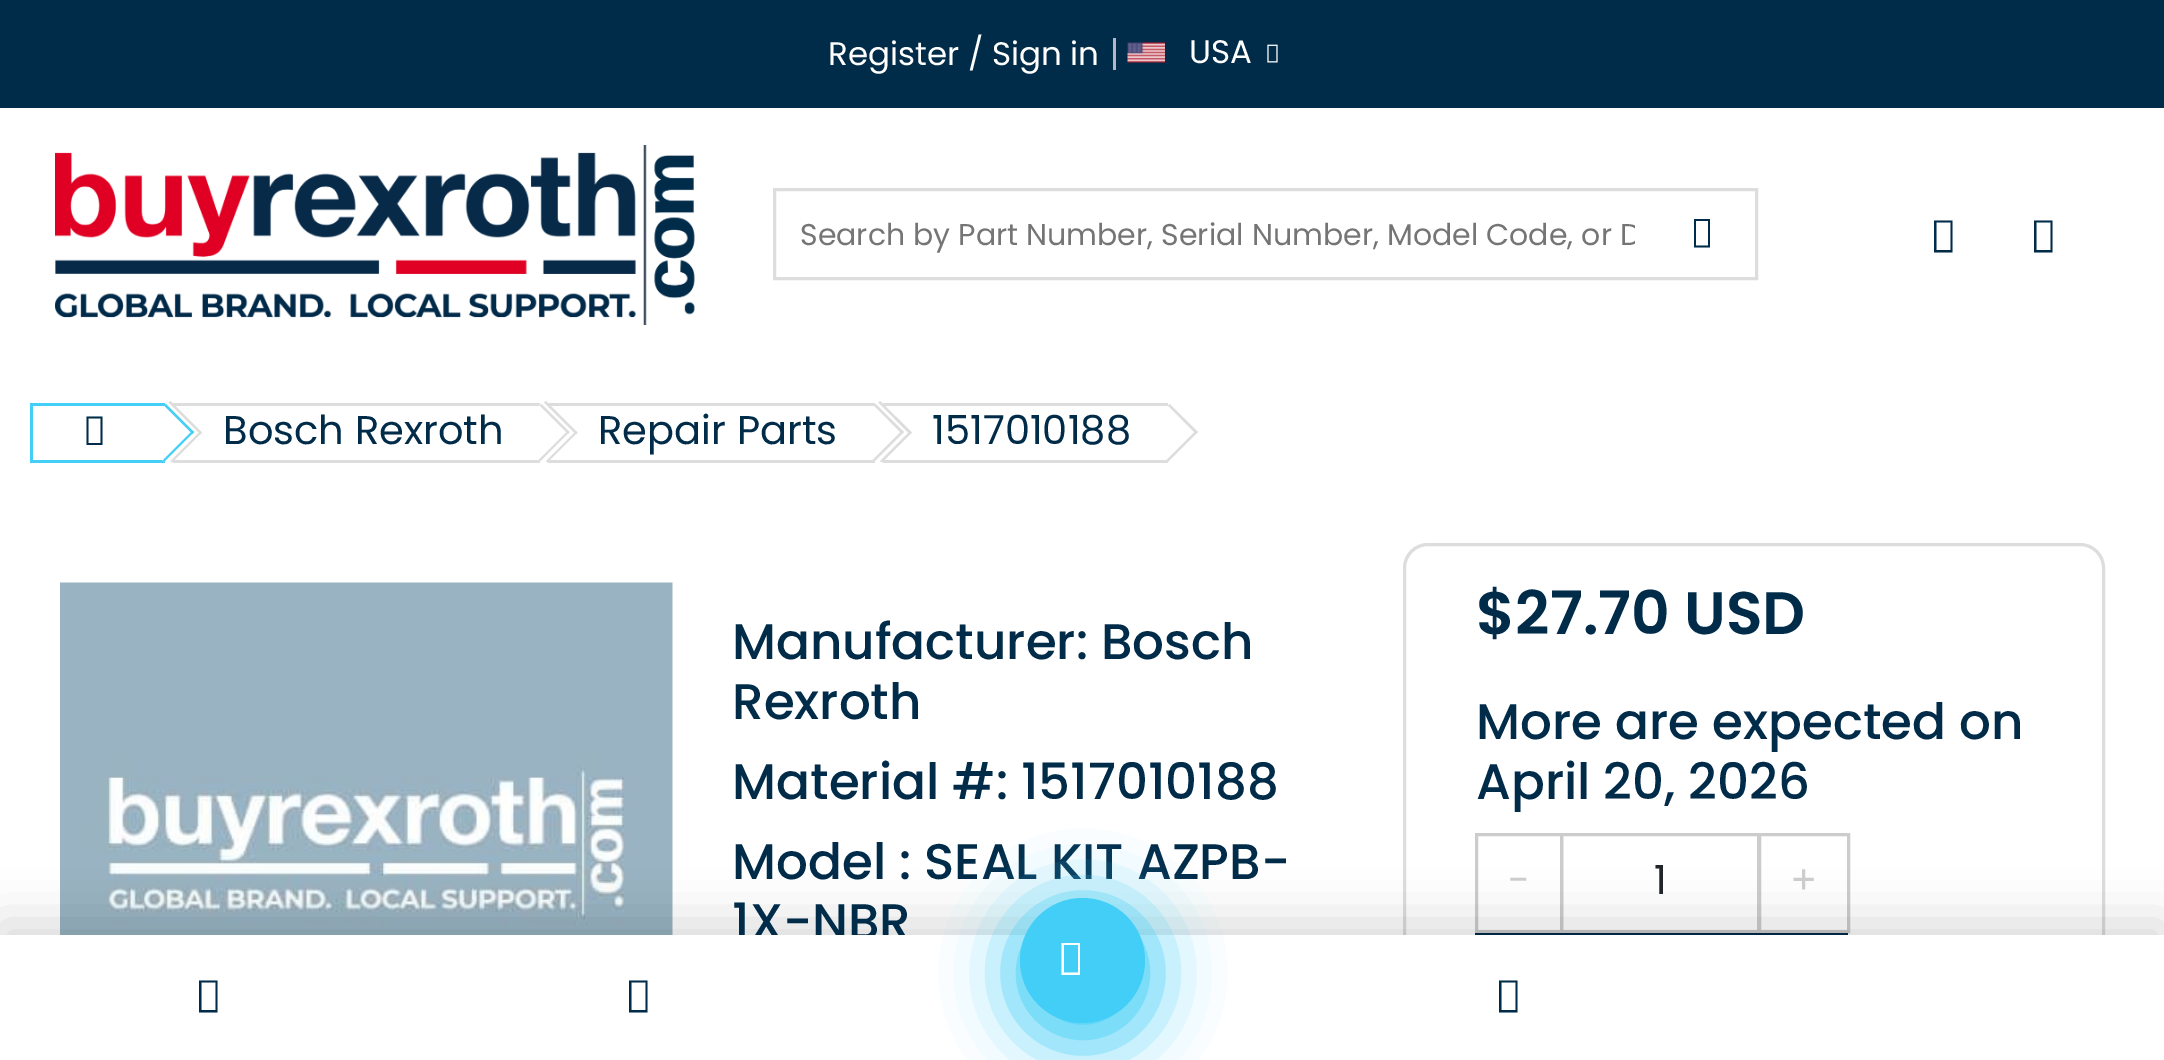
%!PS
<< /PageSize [2164 1060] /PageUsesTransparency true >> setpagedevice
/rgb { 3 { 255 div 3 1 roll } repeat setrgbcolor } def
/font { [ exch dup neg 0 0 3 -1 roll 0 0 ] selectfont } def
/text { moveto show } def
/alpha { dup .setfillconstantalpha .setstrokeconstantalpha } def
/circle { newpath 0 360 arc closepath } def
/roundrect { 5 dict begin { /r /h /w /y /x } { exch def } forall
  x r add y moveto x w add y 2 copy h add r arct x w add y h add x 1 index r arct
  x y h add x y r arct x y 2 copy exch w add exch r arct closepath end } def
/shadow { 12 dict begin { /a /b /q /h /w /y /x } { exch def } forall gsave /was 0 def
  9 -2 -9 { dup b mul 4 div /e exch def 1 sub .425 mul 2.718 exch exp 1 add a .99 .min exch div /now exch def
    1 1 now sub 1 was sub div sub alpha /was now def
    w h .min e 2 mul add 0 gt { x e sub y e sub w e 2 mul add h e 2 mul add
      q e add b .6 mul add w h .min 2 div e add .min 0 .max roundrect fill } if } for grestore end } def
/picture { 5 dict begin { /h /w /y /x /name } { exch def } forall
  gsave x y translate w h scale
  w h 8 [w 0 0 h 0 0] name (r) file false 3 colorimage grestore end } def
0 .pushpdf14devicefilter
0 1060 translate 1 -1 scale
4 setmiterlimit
0 43 73 rgb
0 0 2164 1060 rectfill
179 183 200 rgb
1113 38 3 32 rectfill
(img_01.rgb) 1127 42 38 21 picture
(img_02.rgb) 1267 44 11 19 picture
255 255 255 rgb
0 108 2164 827 rectfill
(img_03.rgb) 55 145 640 180 picture
221 221 221 rgb
3 setlinewidth
774.5 189.5 982 89 rectstroke
0 43 73 rgb
1694 247.5 moveto 0 -28.5 rlineto 16 0 rlineto 0 28.5 rlineto closepath 1696 245.5 moveto 12 0 rlineto 0 -24.5 rlineto -12 0 rlineto closepath fill
1934 252.5 moveto 0 -32 rlineto 18.5 0 rlineto 0 32 rlineto closepath 1936.5 250 moveto 14 0 rlineto 0 -27.5 rlineto -14 0 rlineto closepath fill
2034 252.5 moveto 0 -32 rlineto 18.5 0 rlineto 0 32 rlineto closepath 2036.5 250 moveto 14 0 rlineto 0 -27.5 rlineto -14 0 rlineto closepath fill
66 206 246 rgb
30 403 135 3 rectfill
30 460 135 3 rectfill
30 403 3 60 rectfill
0 43 73 rgb
86.5 445 moveto 0 -28.5 rlineto 16 0 rlineto 0 28.5 rlineto closepath 88.5 443 moveto 12 0 rlineto 0 -24.5 rlineto -12 0 rlineto closepath fill
221 221 221 rgb
173 403 367 3 rectfill
173 460 367 3 rectfill
202 432.5 moveto -30 30 rlineto -1.5 -1.5 rlineto 30 -30 rlineto closepath fill
202 432.5 moveto -1.5 2 rlineto -32 -32 rlineto 2 -1.5 rlineto closepath fill
255 255 255 rgb
166 404 moveto 28 28 rlineto -30 30 rlineto -28 -28 rlineto closepath fill
66 206 246 rgb
166 404 moveto 28 28 rlineto -1.5 2 rlineto -28.5 -28.5 rlineto closepath fill
192.5 430.5 moveto 1.5 1.5 rlineto -30 30 rlineto -1.5 -1.5 rlineto closepath fill
221 221 221 rgb
548 403 327 3 rectfill
548 460 327 3 rectfill
577.5 432.5 moveto -30 30 rlineto -1.5 -1.5 rlineto 30 -30 rlineto closepath fill
577.5 432.5 moveto -1.5 2 rlineto -32 -32 rlineto 2 -1.5 rlineto closepath fill
255 255 255 rgb
541 404 moveto 29 28 rlineto -30 30 rlineto -29 -28 rlineto closepath fill
221 221 221 rgb
541.5 404 moveto 28 28 rlineto -1.5 2 rlineto -28.5 -28.5 rlineto closepath fill
568 430.5 moveto 1.5 1.5 rlineto -30 30 rlineto -1.5 -1.5 rlineto closepath fill
883 403 285 3 rectfill
883 460 285 3 rectfill
912 432.5 moveto -30 30 rlineto -2 -1.5 rlineto 30 -30 rlineto closepath fill
912 432.5 moveto -2 2 rlineto -31.5 -32 rlineto 1.5 -1.5 rlineto closepath fill
255 255 255 rgb
876 404 moveto 28 28 rlineto -30 30 rlineto -28 -28 rlineto closepath fill
221 221 221 rgb
875.5 404 moveto 28.5 28 rlineto -2 2 rlineto -28 -28.5 rlineto closepath fill
902 430.5 moveto 2 1.5 rlineto -30 30 rlineto -2 -1.5 rlineto closepath fill
255 255 255 rgb
1170 404 moveto 28 28 rlineto -30 30 rlineto -28 -28 rlineto closepath fill
221 221 221 rgb
1169.5 404 moveto 28.5 28 rlineto -2 2 rlineto -28 -28.5 rlineto closepath fill
1196 430.5 moveto 2 1.5 rlineto -30 30 rlineto -2 -1.5 rlineto closepath fill
(img_04.rgb) 60 582 613 353 picture
1404.5 544.5 699 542 23.5 roundrect stroke
204 204 204 rgb
1561.5 834.5 197 97 rectstroke
1476.5 834.5 85 97 rectstroke
1759.5 834.5 89 97 rectstroke
0 43 73 rgb
1475 933 373 2 rectfill
0 0 0 rgb
0 923 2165 125 0 25 0.15 shadow
/Poppins-Regular 32.5 font
255 255 255 rgb
(Register / Sign in) 828 65 text
(USA) 1189 63 text
gsave
800 213 835 45 rectclip
/Poppins-Regular 30 font
117 117 117 rgb
(Search by Part Number, Serial Number, Model Code, or D) 800 245 text
grestore
/Poppins-Regular 40 font
0 43 73 rgb
(Bosch Rexroth) 223 444 text
(Repair Parts) 598 444 text
(1517010188) 932 444 text
/Poppins-Medium 50 font
(Manufacturer: Bosch) 732 659 text
(Rexroth) 732 719 text
(Material #: 1517010188) 732 799 text
(Model : SEAL KIT AZPB-) 732 879 text
(1X-NBR) 732 939 text
/Poppins-SemiBold 60 font
($27.70 USD) 1476 634 text
/Poppins-Medium 50 font
(More are expected on) 1476 739 text
(April 20, 2026) 1476 799 text
/Poppins-Regular 40 font
204 204 204 rgb
(-) 1508 894 text
33 37 41 rgb
(1) 1654 894 text
204 204 204 rgb
(+) 1790 894 text
255 255 255 rgb
0 935 2164 125 rectfill
0 43 73 rgb
199 1012.5 moveto 0 -32 rlineto 18.5 0 rlineto 0 32 rlineto closepath 201.5 1010 moveto 14 0 rlineto 0 -27.5 rlineto -14 0 rlineto closepath fill
629 1012.5 moveto 0 -32 rlineto 18.5 0 rlineto 0 32 rlineto closepath 631.5 1010 moveto 14 0 rlineto 0 -27.5 rlineto -14 0 rlineto closepath fill
66 206 246 rgb
1008 898 150 150 75 31 1 shadow
1082.5 960.5 62.5 circle fill
255 255 255 rgb
1061.5 975 moveto 0 -32 rlineto 18.5 0 rlineto 0 32 rlineto closepath 1064 972.5 moveto 14 0 rlineto 0 -27.5 rlineto -14 0 rlineto closepath fill
0 43 73 rgb
1499 1012.5 moveto 0 -32 rlineto 18.5 0 rlineto 0 32 rlineto closepath 1501.5 1010 moveto 14 0 rlineto 0 -27.5 rlineto -14 0 rlineto closepath fill
.poppdf14devicefilter showpage
